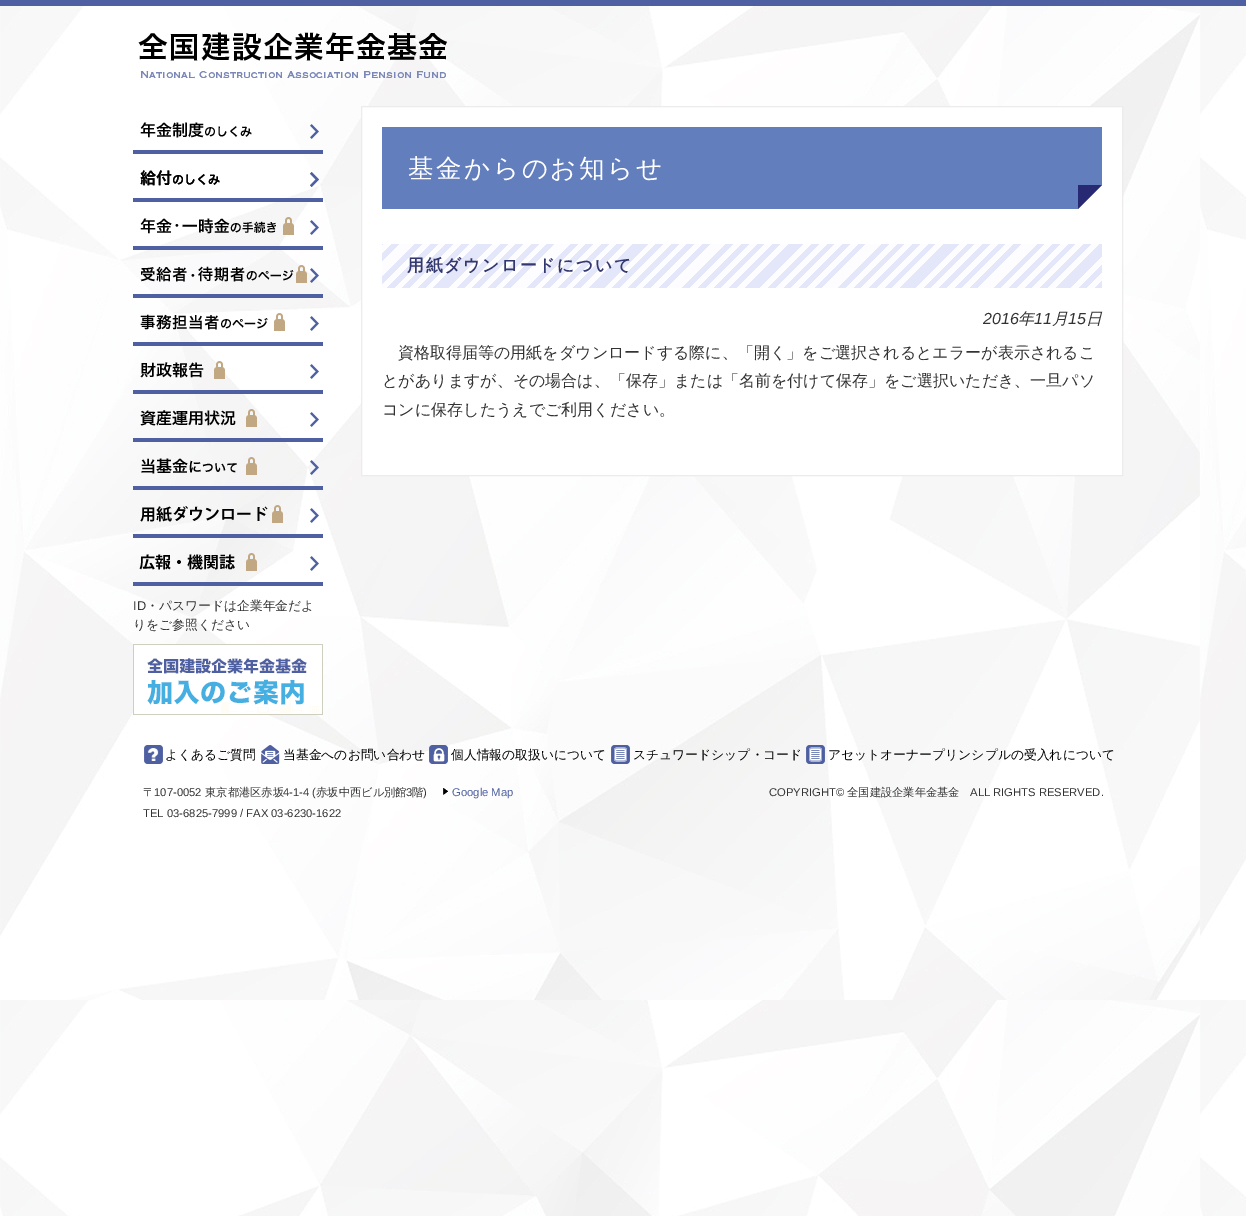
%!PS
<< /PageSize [1246 1216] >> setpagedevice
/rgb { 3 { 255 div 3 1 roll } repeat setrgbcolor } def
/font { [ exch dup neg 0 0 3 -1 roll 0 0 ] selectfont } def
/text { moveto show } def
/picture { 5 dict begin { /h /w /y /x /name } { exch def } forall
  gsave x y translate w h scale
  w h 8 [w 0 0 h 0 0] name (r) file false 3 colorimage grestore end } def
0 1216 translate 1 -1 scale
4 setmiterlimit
255 255 255 rgb
0 0 1246 1216 rectfill
(img_01.rgb) 0 6 1246 1210 picture
78 96 161 rgb
0 0 1246 6 rectfill
(img_02.rgb) 138 32 309 47 picture
255 255 255 rgb
361.5 106.5 moveto 761 0 rlineto 0 369 rlineto -761 0 rlineto closepath gsave fill grestore
237 236 236 rgb
stroke
99 126 189 rgb
382 127 720 82 rectfill
255 255 255 rgb
1102 209 moveto -24 0 rlineto 24 -24 rlineto closepath fill
39 41 115 rgb
1078 209 moveto 0 -24 rlineto 24 0 rlineto closepath fill
gsave 382 244 moveto 720 0 rlineto 0 44 rlineto -720 0 rlineto closepath clip newpath
<< /ShadingType 2 /ColorSpace /DeviceRGB /Coords [933 457 544 68] /Extend [true true] /Function << /FunctionType 3 /Domain [0 1] /Functions [<< /FunctionType 2 /Domain [0 1] /C0 [0.894 0.906 0.976] /C1 [0.894 0.906 0.976] /N 1 >> << /FunctionType 2 /Domain [0 1] /C0 [0.992 0.988 1] /C1 [0.992 0.988 1] /N 1 >> << /FunctionType 2 /Domain [0 1] /C0 [0.894 0.906 0.976] /C1 [0.894 0.906 0.976] /N 1 >> << /FunctionType 2 /Domain [0 1] /C0 [0.992 0.988 1] /C1 [0.992 0.988 1] /N 1 >> << /FunctionType 2 /Domain [0 1] /C0 [0.894 0.906 0.976] /C1 [0.894 0.906 0.976] /N 1 >> << /FunctionType 2 /Domain [0 1] /C0 [0.894 0.906 0.976] /C1 [0.894 0.906 0.976] /N 1 >> << /FunctionType 2 /Domain [0 1] /C0 [0.992 0.988 1] /C1 [0.992 0.988 1] /N 1 >> << /FunctionType 2 /Domain [0 1] /C0 [0.894 0.906 0.976] /C1 [0.894 0.906 0.976] /N 1 >> << /FunctionType 2 /Domain [0 1] /C0 [0.992 0.988 1] /C1 [0.992 0.988 1] /N 1 >> << /FunctionType 2 /Domain [0 1] /C0 [0.894 0.906 0.976] /C1 [0.894 0.906 0.976] /N 1 >> << /FunctionType 2 /Domain [0 1] /C0 [0.992 0.988 1] /C1 [0.992 0.988 1] /N 1 >> << /FunctionType 2 /Domain [0 1] /C0 [0.894 0.906 0.976] /C1 [0.894 0.906 0.976] /N 1 >> << /FunctionType 2 /Domain [0 1] /C0 [0.992 0.988 1] /C1 [0.992 0.988 1] /N 1 >> << /FunctionType 2 /Domain [0 1] /C0 [0.894 0.906 0.976] /C1 [0.894 0.906 0.976] /N 1 >> << /FunctionType 2 /Domain [0 1] /C0 [0.992 0.988 1] /C1 [0.992 0.988 1] /N 1 >> << /FunctionType 2 /Domain [0 1] /C0 [0.992 0.988 1] /C1 [0.992 0.988 1] /N 1 >> << /FunctionType 2 /Domain [0 1] /C0 [0.894 0.906 0.976] /C1 [0.894 0.906 0.976] /N 1 >> << /FunctionType 2 /Domain [0 1] /C0 [0.992 0.988 1] /C1 [0.992 0.988 1] /N 1 >> << /FunctionType 2 /Domain [0 1] /C0 [0.894 0.906 0.976] /C1 [0.894 0.906 0.976] /N 1 >> << /FunctionType 2 /Domain [0 1] /C0 [0.992 0.988 1] /C1 [0.992 0.988 1] /N 1 >> << /FunctionType 2 /Domain [0 1] /C0 [0.894 0.906 0.976] /C1 [0.894 0.906 0.976] /N 1 >> << /FunctionType 2 /Domain [0 1] /C0 [0.992 0.988 1] /C1 [0.992 0.988 1] /N 1 >> << /FunctionType 2 /Domain [0 1] /C0 [0.894 0.906 0.976] /C1 [0.894 0.906 0.976] /N 1 >> << /FunctionType 2 /Domain [0 1] /C0 [0.992 0.988 1] /C1 [0.992 0.988 1] /N 1 >> << /FunctionType 2 /Domain [0 1] /C0 [0.894 0.906 0.976] /C1 [0.894 0.906 0.976] /N 1 >> << /FunctionType 2 /Domain [0 1] /C0 [0.894 0.906 0.976] /C1 [0.894 0.906 0.976] /N 1 >> << /FunctionType 2 /Domain [0 1] /C0 [0.992 0.988 1] /C1 [0.992 0.988 1] /N 1 >> << /FunctionType 2 /Domain [0 1] /C0 [0.894 0.906 0.976] /C1 [0.894 0.906 0.976] /N 1 >> << /FunctionType 2 /Domain [0 1] /C0 [0.992 0.988 1] /C1 [0.992 0.988 1] /N 1 >> << /FunctionType 2 /Domain [0 1] /C0 [0.894 0.906 0.976] /C1 [0.894 0.906 0.976] /N 1 >> << /FunctionType 2 /Domain [0 1] /C0 [0.992 0.988 1] /C1 [0.992 0.988 1] /N 1 >> << /FunctionType 2 /Domain [0 1] /C0 [0.894 0.906 0.976] /C1 [0.894 0.906 0.976] /N 1 >> << /FunctionType 2 /Domain [0 1] /C0 [0.992 0.988 1] /C1 [0.992 0.988 1] /N 1 >> << /FunctionType 2 /Domain [0 1] /C0 [0.894 0.906 0.976] /C1 [0.894 0.906 0.976] /N 1 >> << /FunctionType 2 /Domain [0 1] /C0 [0.992 0.988 1] /C1 [0.992 0.988 1] /N 1 >> << /FunctionType 2 /Domain [0 1] /C0 [0.992 0.988 1] /C1 [0.992 0.988 1] /N 1 >> << /FunctionType 2 /Domain [0 1] /C0 [0.894 0.906 0.976] /C1 [0.894 0.906 0.976] /N 1 >> << /FunctionType 2 /Domain [0 1] /C0 [0.992 0.988 1] /C1 [0.992 0.988 1] /N 1 >> << /FunctionType 2 /Domain [0 1] /C0 [0.894 0.906 0.976] /C1 [0.894 0.906 0.976] /N 1 >> << /FunctionType 2 /Domain [0 1] /C0 [0.992 0.988 1] /C1 [0.992 0.988 1] /N 1 >> << /FunctionType 2 /Domain [0 1] /C0 [0.894 0.906 0.976] /C1 [0.894 0.906 0.976] /N 1 >> << /FunctionType 2 /Domain [0 1] /C0 [0.992 0.988 1] /C1 [0.992 0.988 1] /N 1 >> << /FunctionType 2 /Domain [0 1] /C0 [0.894 0.906 0.976] /C1 [0.894 0.906 0.976] /N 1 >> << /FunctionType 2 /Domain [0 1] /C0 [0.992 0.988 1] /C1 [0.992 0.988 1] /N 1 >> << /FunctionType 2 /Domain [0 1] /C0 [0.894 0.906 0.976] /C1 [0.894 0.906 0.976] /N 1 >> << /FunctionType 2 /Domain [0 1] /C0 [0.894 0.906 0.976] /C1 [0.894 0.906 0.976] /N 1 >> << /FunctionType 2 /Domain [0 1] /C0 [0.992 0.988 1] /C1 [0.992 0.988 1] /N 1 >> << /FunctionType 2 /Domain [0 1] /C0 [0.894 0.906 0.976] /C1 [0.894 0.906 0.976] /N 1 >> << /FunctionType 2 /Domain [0 1] /C0 [0.992 0.988 1] /C1 [0.992 0.988 1] /N 1 >> << /FunctionType 2 /Domain [0 1] /C0 [0.894 0.906 0.976] /C1 [0.894 0.906 0.976] /N 1 >> << /FunctionType 2 /Domain [0 1] /C0 [0.992 0.988 1] /C1 [0.992 0.988 1] /N 1 >> << /FunctionType 2 /Domain [0 1] /C0 [0.894 0.906 0.976] /C1 [0.894 0.906 0.976] /N 1 >> << /FunctionType 2 /Domain [0 1] /C0 [0.992 0.988 1] /C1 [0.992 0.988 1] /N 1 >> << /FunctionType 2 /Domain [0 1] /C0 [0.894 0.906 0.976] /C1 [0.894 0.906 0.976] /N 1 >> << /FunctionType 2 /Domain [0 1] /C0 [0.992 0.988 1] /C1 [0.992 0.988 1] /N 1 >> << /FunctionType 2 /Domain [0 1] /C0 [0.992 0.988 1] /C1 [0.992 0.988 1] /N 1 >> << /FunctionType 2 /Domain [0 1] /C0 [0.894 0.906 0.976] /C1 [0.894 0.906 0.976] /N 1 >> << /FunctionType 2 /Domain [0 1] /C0 [0.992 0.988 1] /C1 [0.992 0.988 1] /N 1 >> << /FunctionType 2 /Domain [0 1] /C0 [0.894 0.906 0.976] /C1 [0.894 0.906 0.976] /N 1 >> << /FunctionType 2 /Domain [0 1] /C0 [0.992 0.988 1] /C1 [0.992 0.988 1] /N 1 >> << /FunctionType 2 /Domain [0 1] /C0 [0.894 0.906 0.976] /C1 [0.894 0.906 0.976] /N 1 >> << /FunctionType 2 /Domain [0 1] /C0 [0.992 0.988 1] /C1 [0.992 0.988 1] /N 1 >> << /FunctionType 2 /Domain [0 1] /C0 [0.894 0.906 0.976] /C1 [0.894 0.906 0.976] /N 1 >> << /FunctionType 2 /Domain [0 1] /C0 [0.992 0.988 1] /C1 [0.992 0.988 1] /N 1 >> << /FunctionType 2 /Domain [0 1] /C0 [0.894 0.906 0.976] /C1 [0.894 0.906 0.976] /N 1 >> << /FunctionType 2 /Domain [0 1] /C0 [0.894 0.906 0.976] /C1 [0.894 0.906 0.976] /N 1 >> << /FunctionType 2 /Domain [0 1] /C0 [0.992 0.988 1] /C1 [0.992 0.988 1] /N 1 >> << /FunctionType 2 /Domain [0 1] /C0 [0.894 0.906 0.976] /C1 [0.894 0.906 0.976] /N 1 >> << /FunctionType 2 /Domain [0 1] /C0 [0.992 0.988 1] /C1 [0.992 0.988 1] /N 1 >> << /FunctionType 2 /Domain [0 1] /C0 [0.894 0.906 0.976] /C1 [0.894 0.906 0.976] /N 1 >> << /FunctionType 2 /Domain [0 1] /C0 [0.992 0.988 1] /C1 [0.992 0.988 1] /N 1 >> << /FunctionType 2 /Domain [0 1] /C0 [0.894 0.906 0.976] /C1 [0.894 0.906 0.976] /N 1 >> << /FunctionType 2 /Domain [0 1] /C0 [0.992 0.988 1] /C1 [0.992 0.988 1] /N 1 >> << /FunctionType 2 /Domain [0 1] /C0 [0.894 0.906 0.976] /C1 [0.894 0.906 0.976] /N 1 >> << /FunctionType 2 /Domain [0 1] /C0 [0.992 0.988 1] /C1 [0.992 0.988 1] /N 1 >> << /FunctionType 2 /Domain [0 1] /C0 [0.992 0.988 1] /C1 [0.992 0.988 1] /N 1 >> << /FunctionType 2 /Domain [0 1] /C0 [0.894 0.906 0.976] /C1 [0.894 0.906 0.976] /N 1 >> << /FunctionType 2 /Domain [0 1] /C0 [0.992 0.988 1] /C1 [0.992 0.988 1] /N 1 >> << /FunctionType 2 /Domain [0 1] /C0 [0.894 0.906 0.976] /C1 [0.894 0.906 0.976] /N 1 >> << /FunctionType 2 /Domain [0 1] /C0 [0.992 0.988 1] /C1 [0.992 0.988 1] /N 1 >> << /FunctionType 2 /Domain [0 1] /C0 [0.894 0.906 0.976] /C1 [0.894 0.906 0.976] /N 1 >> << /FunctionType 2 /Domain [0 1] /C0 [0.992 0.988 1] /C1 [0.992 0.988 1] /N 1 >> << /FunctionType 2 /Domain [0 1] /C0 [0.894 0.906 0.976] /C1 [0.894 0.906 0.976] /N 1 >> << /FunctionType 2 /Domain [0 1] /C0 [0.992 0.988 1] /C1 [0.992 0.988 1] /N 1 >> << /FunctionType 2 /Domain [0 1] /C0 [0.894 0.906 0.976] /C1 [0.894 0.906 0.976] /N 1 >> << /FunctionType 2 /Domain [0 1] /C0 [0.894 0.906 0.976] /C1 [0.894 0.906 0.976] /N 1 >> << /FunctionType 2 /Domain [0 1] /C0 [0.992 0.988 1] /C1 [0.992 0.988 1] /N 1 >> << /FunctionType 2 /Domain [0 1] /C0 [0.894 0.906 0.976] /C1 [0.894 0.906 0.976] /N 1 >> << /FunctionType 2 /Domain [0 1] /C0 [0.992 0.988 1] /C1 [0.992 0.988 1] /N 1 >> << /FunctionType 2 /Domain [0 1] /C0 [0.894 0.906 0.976] /C1 [0.894 0.906 0.976] /N 1 >> << /FunctionType 2 /Domain [0 1] /C0 [0.992 0.988 1] /C1 [0.992 0.988 1] /N 1 >> << /FunctionType 2 /Domain [0 1] /C0 [0.894 0.906 0.976] /C1 [0.894 0.906 0.976] /N 1 >> << /FunctionType 2 /Domain [0 1] /C0 [0.992 0.988 1] /C1 [0.992 0.988 1] /N 1 >> << /FunctionType 2 /Domain [0 1] /C0 [0.894 0.906 0.976] /C1 [0.894 0.906 0.976] /N 1 >> << /FunctionType 2 /Domain [0 1] /C0 [0.992 0.988 1] /C1 [0.992 0.988 1] /N 1 >> << /FunctionType 2 /Domain [0 1] /C0 [0.992 0.988 1] /C1 [0.992 0.988 1] /N 1 >> << /FunctionType 2 /Domain [0 1] /C0 [0.894 0.906 0.976] /C1 [0.894 0.906 0.976] /N 1 >> << /FunctionType 2 /Domain [0 1] /C0 [0.992 0.988 1] /C1 [0.992 0.988 1] /N 1 >> << /FunctionType 2 /Domain [0 1] /C0 [0.894 0.906 0.976] /C1 [0.894 0.906 0.976] /N 1 >> << /FunctionType 2 /Domain [0 1] /C0 [0.992 0.988 1] /C1 [0.992 0.988 1] /N 1 >>] /Bounds [0.01 0.02 0.03 0.04 0.05 0.06 0.07 0.08 0.09 0.1 0.11 0.12 0.13 0.14 0.15 0.16 0.17 0.18 0.19 0.2 0.21 0.22 0.23 0.24 0.25 0.26 0.27 0.28 0.29 0.3 0.31 0.32 0.33 0.34 0.35 0.36 0.37 0.38 0.39 0.4 0.41 0.42 0.43 0.44 0.45 0.46 0.47 0.48 0.49 0.5 0.51 0.52 0.53 0.54 0.55 0.56 0.57 0.58 0.59 0.6 0.61 0.62 0.63 0.64 0.65 0.66 0.67 0.68 0.69 0.7 0.71 0.72 0.73 0.74 0.75 0.76 0.77 0.78 0.79 0.8 0.81 0.82 0.83 0.84 0.85 0.86 0.87 0.88 0.89 0.9 0.91 0.92 0.93 0.94 0.95 0.96 0.97 0.98 0.99] /Encode [0 1 0 1 0 1 0 1 0 1 0 1 0 1 0 1 0 1 0 1 0 1 0 1 0 1 0 1 0 1 0 1 0 1 0 1 0 1 0 1 0 1 0 1 0 1 0 1 0 1 0 1 0 1 0 1 0 1 0 1 0 1 0 1 0 1 0 1 0 1 0 1 0 1 0 1 0 1 0 1 0 1 0 1 0 1 0 1 0 1 0 1 0 1 0 1 0 1 0 1 0 1 0 1 0 1 0 1 0 1 0 1 0 1 0 1 0 1 0 1 0 1 0 1 0 1 0 1 0 1 0 1 0 1 0 1 0 1 0 1 0 1 0 1 0 1 0 1 0 1 0 1 0 1 0 1 0 1 0 1 0 1 0 1 0 1 0 1 0 1 0 1 0 1 0 1 0 1 0 1 0 1 0 1 0 1 0 1 0 1 0 1 0 1 0 1 0 1 0 1] >> >> shfill grestore
(img_03.rgb) 133 122 190 32 picture
(img_04.rgb) 133 170 190 32 picture
(img_05.rgb) 140 170 179 17 picture
(img_06.rgb) 133 217 190 33 picture
(img_07.rgb) 133 265 190 33 picture
(img_08.rgb) 133 313 190 33 picture
(img_09.rgb) 133 361 190 33 picture
(img_10.rgb) 133 409 190 33 picture
(img_11.rgb) 133 457 190 33 picture
(img_12.rgb) 133 505 190 33 picture
(img_13.rgb) 133 553 190 33 picture
(img_14.rgb) 133 644 190 71 picture
(img_15.rgb) 144 745 19 19 picture
(img_16.rgb) 261 745 19 19 picture
(img_17.rgb) 429 745 19 19 picture
(img_18.rgb) 611 745 19 19 picture
(img_19.rgb) 806 745 19 19 picture
(img_20.rgb) 443 788 5 7 picture
/WenQuanYiZenHei-Medium 25.6 font
255 255 255 rgb
408 177 moveto 2.5 0 (基金からのお知らせ) ashow
/WenQuanYiZenHei-Bold 16.75 font
51 56 110 rgb
407 271 moveto 1.75 0 (用紙ダウンロードについて) ashow
/LiberationSans-Italic 16 font
51 51 51 rgb
(2016) 983 324 text
/WenQuanYiZenHei-MediumItalic 16 font
(年) 1018 324 text
/LiberationSans-Italic 16 font
(11) 1034 324 text
/WenQuanYiZenHei-MediumItalic 16 font
(月) 1052 324 text
/LiberationSans-Italic 16 font
(15) 1068 324 text
/WenQuanYiZenHei-MediumItalic 16 font
(日) 1086 324 text
/WenQuanYiZenHei-Medium 16 font
(資格取得届等の用紙をダウンロードする際に、「開く」をご選択されるとエラーが表示されるこ) 398 358 text
(とがありますが、その場合は、「保存」または「名前を付けて保存」をご選択いただき、一旦パソ) 382 386 text
(コンに保存したうえでご利用ください。) 382 415 text
/LiberationSans-Regular 12.8 font
(ID) 133 610 text
/WenQuanYiZenHei-Medium 12.8 font
(・パスワードは企業年金だよ) 146 610 text
(りをご参照ください) 133 629 text
0 0 0 rgb
(よくあるご質問) 165 759 text
(当基金へのお問い合わせ) 283 759 text
(個人情報の取扱いについて) 451 759 text
(スチュワードシップ・コード) 633 759 text
(アセットオーナープリンシプルの受入れについて) 828 759 text
/WenQuanYiZenHei-Medium 11.25 font
51 51 51 rgb
(〒) 143 796 text
/LiberationSans-Regular 11.25 font
(107-0052) 154 796 text
/WenQuanYiZenHei-Medium 11.25 font
(東京都港区赤坂) 205 796 text
/LiberationSans-Regular 11.25 font
(4-1-4 \() 283 796 text
/WenQuanYiZenHei-Medium 11.25 font
(赤坂中西ビル別館) 316 796 text
/LiberationSans-Regular 11.25 font
(3) 406 796 text
/WenQuanYiZenHei-Medium 11.25 font
(階) 412 796 text
/LiberationSans-Regular 11.25 font
(\)) 423 796 text
78 96 161 rgb
(Google Map) 452 796 text
51 51 51 rgb
(TEL 03-6825-7999 / FAX 03-6230-1622) 143 817 text
(COPYRIGHT©) 769 796 text
/WenQuanYiZenHei-Medium 11.25 font
(全国建設企業年金基金) 847 796 text
/LiberationSans-Regular 11.25 font
(ALL RIGHTS RESERVED.) 970 796 text
showpage
